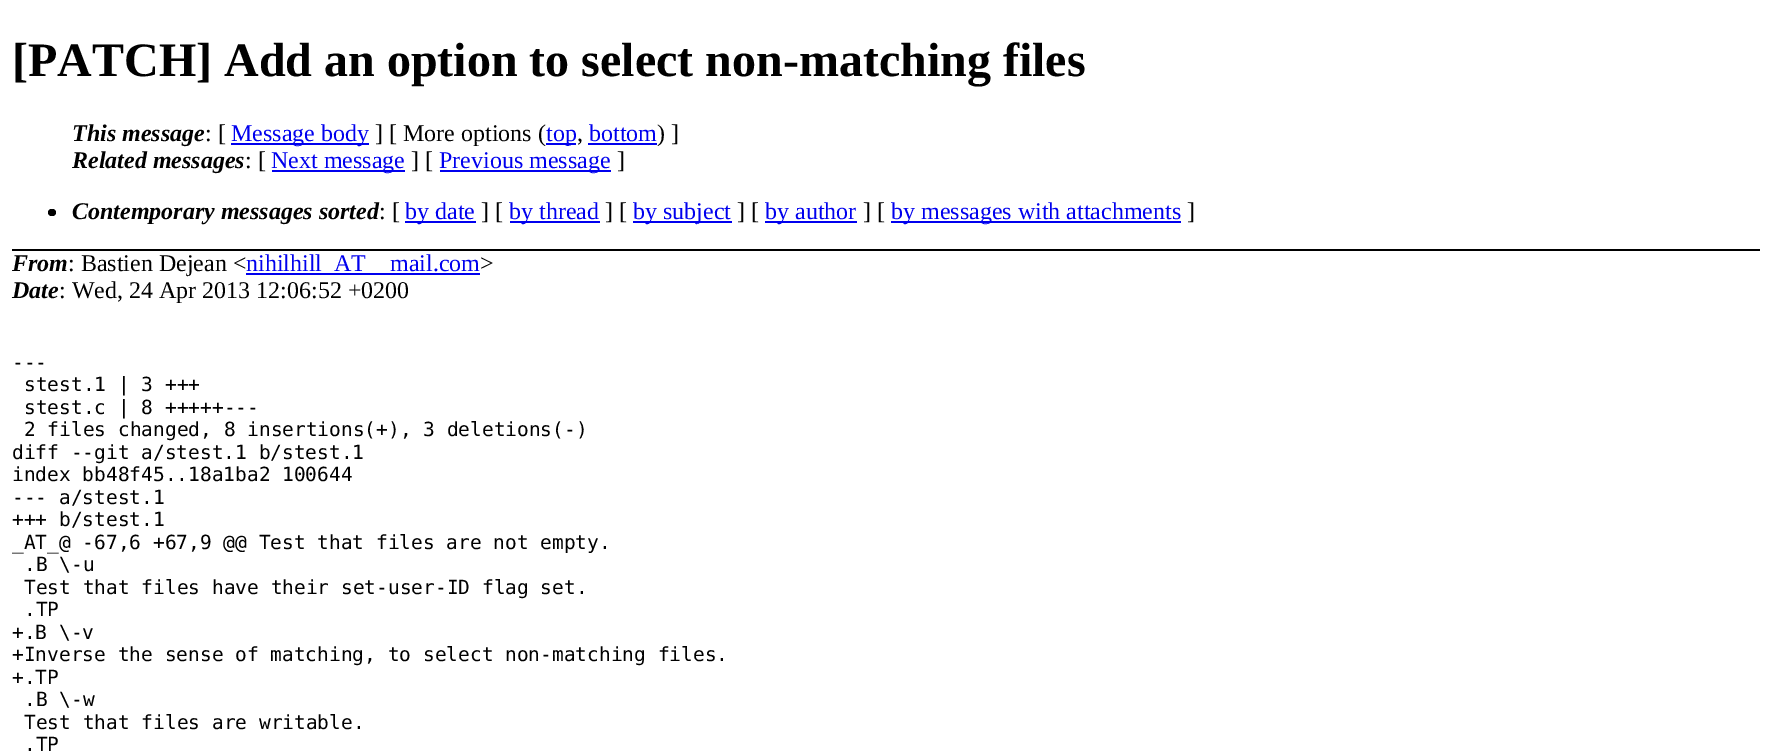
%!PS
<< /PageSize [1771 752] >> setpagedevice
/rgb { 3 { 255 div 3 1 roll } repeat setrgbcolor } def
/font { [ exch dup neg 0 0 3 -1 roll 0 0 ] selectfont } def
/text { moveto show } def
/roundrect { 5 dict begin { /r /h /w /y /x } { exch def } forall
  x r add y moveto x w add y 2 copy h add r arct x w add y h add x 1 index r arct
  x y h add x y r arct x y 2 copy exch w add exch r arct closepath end } def
0 752 translate 1 -1 scale
4 setmiterlimit
255 255 255 rgb
0 0 1771 752 rectfill
0 0 0 rgb
12 249 1748 2 rectfill
0 0 238 rgb
231 143 138 2 rectfill
546 143 30 2 rectfill
588 143 69 2 rectfill
272 170 133 2 rectfill
440 170 171 2 rectfill
0 0 0 rgb
48 209 8 7 3.5 roundrect fill
0 0 238 rgb
405 221 71 2 rectfill
510 221 90 2 rectfill
633 221 99 2 rectfill
765 221 92 2 rectfill
891 221 290 2 rectfill
246 273 234 2 rectfill
/LiberationSerif-Bold 48 font
0 0 0 rgb
([PATCH] Add an option to select non-matching files) 12 76 text
/LiberationSerif-BoldItalic 24 font
(This message) 72 141 text
/LiberationSerif-Regular 24 font
(: [) 205 141 text
0 0 238 rgb
(Message body) 231 141 text
0 0 0 rgb
(] [ More options \() 375 141 text
0 0 238 rgb
(top) 546 141 text
0 0 0 rgb
(,) 577 141 text
0 0 238 rgb
(bottom) 589 141 text
0 0 0 rgb
(\) ]) 657 141 text
/LiberationSerif-BoldItalic 24 font
(Related messages) 72 168 text
/LiberationSerif-Regular 24 font
(: [) 245 168 text
0 0 238 rgb
(Next message) 271 168 text
0 0 0 rgb
(] [) 411 168 text
0 0 238 rgb
(Previous message) 439 168 text
0 0 0 rgb
(]) 617 168 text
/LiberationSerif-BoldItalic 24 font
(Contemporary messages sorted) 72 219 text
/LiberationSerif-Regular 24 font
(: [) 379 219 text
0 0 238 rgb
(by date) 405 219 text
0 0 0 rgb
(] [) 481 219 text
0 0 238 rgb
(by thread) 509 219 text
0 0 0 rgb
(] [) 605 219 text
0 0 238 rgb
(by subject) 633 219 text
0 0 0 rgb
(] [) 737 219 text
0 0 238 rgb
(by author) 765 219 text
0 0 0 rgb
(] [) 863 219 text
0 0 238 rgb
(by messages with attachments) 891 219 text
0 0 0 rgb
(]) 1187 219 text
/LiberationSerif-BoldItalic 24 font
(From) 12 271 text
/LiberationSerif-Regular 24 font
(: Bastien Dejean <) 68 271 text
0 0 238 rgb
(nihilhill_AT) 246 271 text
(mail.com) 390 271 text
0 0 0 rgb
(>) 480 271 text
/LiberationSerif-BoldItalic 24 font
(Date) 12 298 text
/LiberationSerif-Regular 24 font
(: Wed, 24 Apr 2013 12:06:52 +0200) 59 298 text
/DejaVuSansMono-Regular 19.5 font
(---) 12 369 text
(stest.1 | 3 +++) 24 391 text
(stest.c | 8 +++++---) 24 414 text
(2 files changed, 8 insertions\(+\), 3 deletions\(-\)) 24 436 text
(diff --git a/stest.1 b/stest.1) 12 459 text
(index bb48f45..18a1ba2 100644) 12 481 text
(--- a/stest.1) 12 504 text
(+++ b/stest.1) 12 526 text
(_AT_@ -67,6 +67,9 @@ Test that files are not empty.) 12 549 text
(.B \\-u) 24 571 text
(Test that files have their set-user-ID flag set.) 24 594 text
(.TP) 24 616 text
(+.B \\-v) 12 639 text
(+Inverse the sense of matching, to select non-matching files.) 12 661 text
(+.TP) 12 684 text
(.B \\-w) 24 706 text
(Test that files are writable.) 24 729 text
(.TP) 24 751 text
showpage
